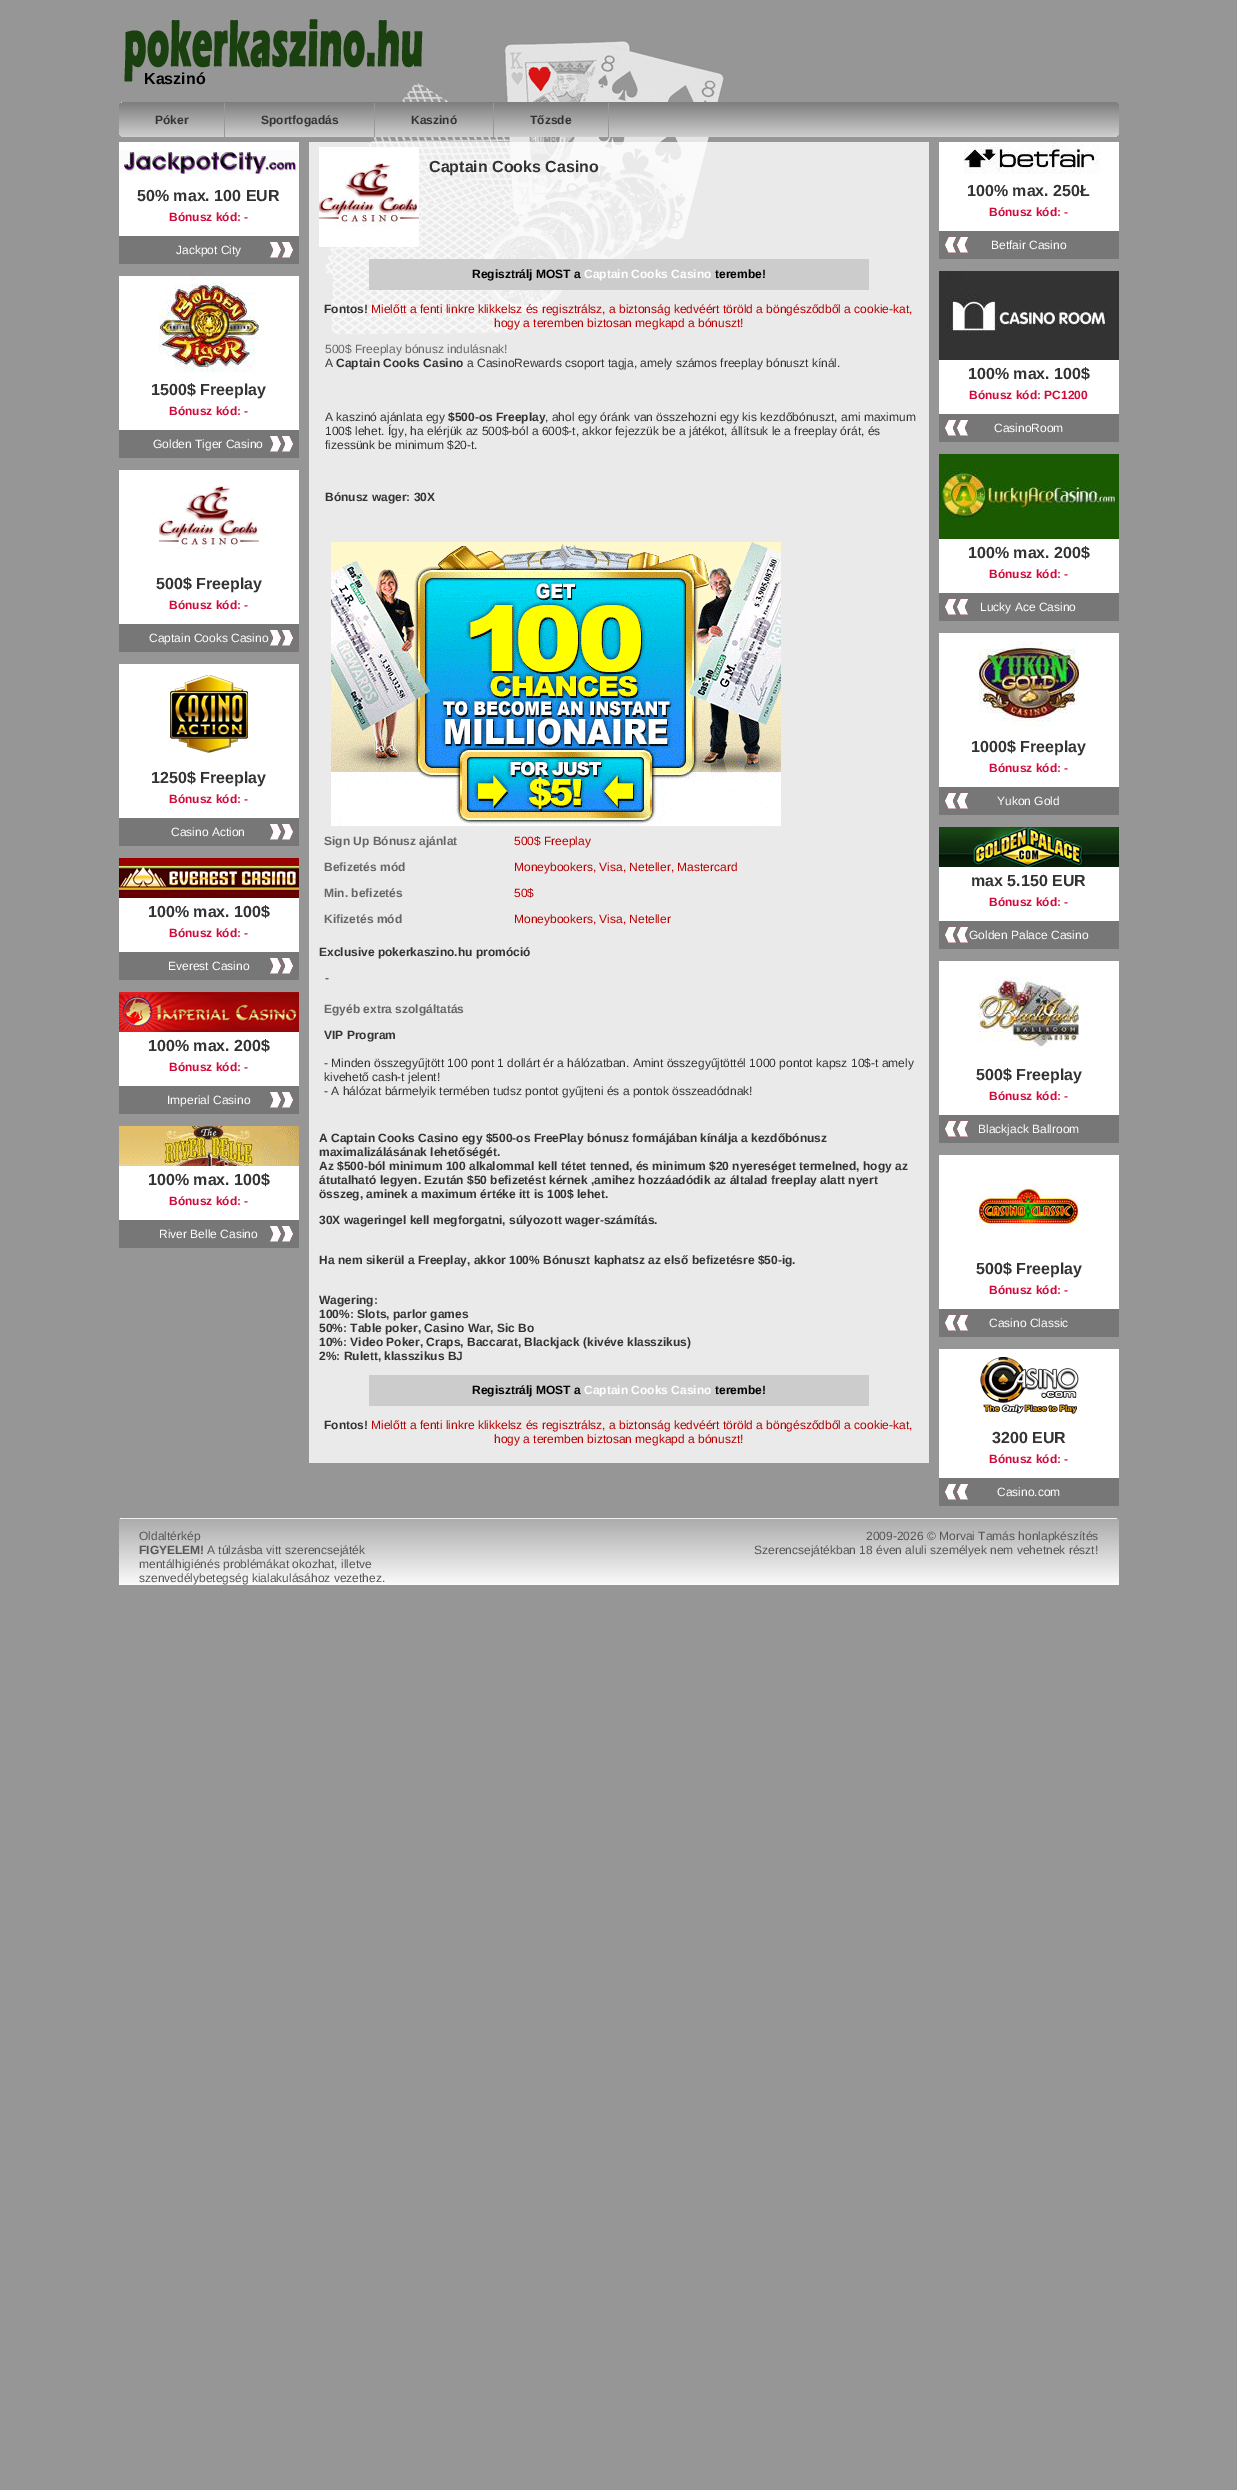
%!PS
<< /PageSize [1237 2490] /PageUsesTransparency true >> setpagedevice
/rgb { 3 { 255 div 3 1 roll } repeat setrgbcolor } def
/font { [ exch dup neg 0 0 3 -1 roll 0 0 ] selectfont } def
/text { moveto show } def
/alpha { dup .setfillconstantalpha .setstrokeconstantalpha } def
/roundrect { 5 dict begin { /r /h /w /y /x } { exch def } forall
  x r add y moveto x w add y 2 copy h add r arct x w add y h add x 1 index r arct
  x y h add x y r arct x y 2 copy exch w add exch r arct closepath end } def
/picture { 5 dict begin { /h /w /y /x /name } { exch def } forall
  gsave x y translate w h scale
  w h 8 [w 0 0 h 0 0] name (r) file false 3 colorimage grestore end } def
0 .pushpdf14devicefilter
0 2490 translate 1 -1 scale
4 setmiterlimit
150 150 150 rgb
0 0 1237 2490 rectfill
(img_01.rgb) 320 40 404 318 picture
(img_02.rgb) 124 19 299 63 picture
gsave
119 102 1000 35 5 roundrect clip newpath
gsave 119 102 moveto 3 0 rlineto 0 1 rlineto -3 0 rlineto closepath clip newpath
<< /ShadingType 2 /ColorSpace /DeviceRGB /Coords [119 69 119 103] /Extend [true true] /Function << /FunctionType 2 /Domain [0 1] /C0 [0.498 0.498 0.498] /C1 [0.812 0.812 0.812] /N 1 >> >> shfill grestore
gsave 119 103 moveto 1000 0 rlineto 0 29 rlineto 0 3 -2 5 -5 5 rcurveto -990 0 rlineto -3 0 -5 -2 -5 -5 rcurveto closepath clip newpath
<< /ShadingType 2 /ColorSpace /DeviceRGB /Coords [119 103 119 137] /Extend [true true] /Function << /FunctionType 2 /Domain [0 1] /C0 [0.498 0.498 0.498] /C1 [0.812 0.812 0.812] /N 1 >> >> shfill grestore
grestore
127 127 127 rgb
122 102 995 1 rectfill
153 153 153 rgb
224 103 1 34 rectfill
374 103 1 34 rectfill
493 103 1 34 rectfill
608 103 1 34 rectfill
255 255 255 rgb
119 142 180 94 rectfill
(img_03.rgb) 119 150 179 24 picture
(img_04.rgb) 119 236 180 28 picture
119 276 180 154 rectfill
(img_05.rgb) 159 276 100 97 picture
(img_04.rgb) 119 430 180 28 picture
119 470 180 154 rectfill
(img_06.rgb) 159 486 100 64 picture
(img_04.rgb) 119 624 180 28 picture
119 664 180 154 rectfill
(img_07.rgb) 167 675 83 78 picture
(img_04.rgb) 119 818 180 28 picture
119 898 180 54 rectfill
(img_08.rgb) 119 858 180 40 picture
(img_04.rgb) 119 952 180 28 picture
119 1032 180 54 rectfill
(img_09.rgb) 119 992 180 40 picture
(img_04.rgb) 119 1086 180 28 picture
119 1166 180 54 rectfill
(img_10.rgb) 119 1126 180 40 picture
(img_04.rgb) 119 1220 180 28 picture
0.8 alpha
309 142 620 1321 rectfill
1 alpha
(img_11.rgb) 319 147 100 100 picture
204 204 204 rgb
369 259 500 31 rectfill
(img_12.rgb) 331 542 450 284 picture
369 1375 500 31 rectfill
255 255 255 rgb
939 142 180 89 rectfill
(img_13.rgb) 964 142 136 32 picture
(img_14.rgb) 939 231 180 28 picture
939 360 180 54 rectfill
(img_15.rgb) 939 271 180 89 picture
(img_14.rgb) 939 414 180 28 picture
939 539 180 54 rectfill
(img_16.rgb) 939 454 180 85 picture
(img_14.rgb) 939 593 180 28 picture
939 633 180 154 rectfill
(img_17.rgb) 979 642 100 85 picture
(img_14.rgb) 939 787 180 28 picture
939 867 180 54 rectfill
(img_18.rgb) 939 827 180 40 picture
(img_14.rgb) 939 921 180 28 picture
939 961 180 154 rectfill
(img_19.rgb) 979 977 100 72 picture
(img_14.rgb) 939 1115 180 28 picture
939 1155 180 154 rectfill
(img_20.rgb) 979 1187 100 40 picture
(img_14.rgb) 939 1309 180 28 picture
939 1349 180 129 rectfill
(img_21.rgb) 980 1357 99 57 picture
(img_14.rgb) 939 1478 180 28 picture
gsave
124 1518 moveto 990 0 rlineto 3 0 5 2 5 5 rcurveto 0 62 rlineto -1000 0 rlineto 0 -62 rlineto 0 -3 2 -5 5 -5 rcurveto closepath clip newpath
gsave 119 1518 moveto 3 0 rlineto 0 1 rlineto -3 0 rlineto closepath clip newpath
<< /ShadingType 2 /ColorSpace /DeviceRGB /Coords [119 1453 119 1519] /Extend [true true] /Function << /FunctionType 2 /Domain [0 1] /C0 [0.671 0.671 0.671] /C1 [0.984 0.984 0.984] /N 1 >> >> shfill grestore
gsave 119 1519 moveto 1000 0 rlineto 0 66 rlineto -1000 0 rlineto closepath clip newpath
<< /ShadingType 2 /ColorSpace /DeviceRGB /Coords [119 1519 119 1585] /Extend [true true] /Function << /FunctionType 2 /Domain [0 1] /C0 [0.671 0.671 0.671] /C1 [0.984 0.984 0.984] /N 1 >> >> shfill grestore
grestore
238 238 238 rgb
122 1518 995 1 rectfill
/LiberationSans-Bold 16 font
0 0 0 rgb
(Kaszinó) 144 84 text
/LiberationSans-Bold 12 font
51 51 51 rgb
(Póker) 155 124 text
(Sportfogadás) 261 124 text
(Kaszinó) 411 124 text
(Tőzsde) 530 124 text
/LiberationSans-Bold 16 font
(50% max. 100 EUR) 137 201 text
/LiberationSans-Bold 12 font
207 11 59 rgb
(Bónusz kód: -) 169 221 text
/LiberationSans-Regular 12 font
255 255 255 rgb
(Jackpot City) 176 254 text
/LiberationSans-Bold 16 font
51 51 51 rgb
(1500$ Freeplay) 151 395 text
/LiberationSans-Bold 12 font
207 11 59 rgb
(Bónusz kód: -) 169 415 text
/LiberationSans-Regular 12 font
255 255 255 rgb
(Golden Tiger Casino) 153 448 text
/LiberationSans-Bold 16 font
51 51 51 rgb
(500$ Freeplay) 156 589 text
/LiberationSans-Bold 12 font
207 11 59 rgb
(Bónusz kód: -) 169 609 text
/LiberationSans-Regular 12 font
255 255 255 rgb
(Captain Cooks Casino) 149 642 text
/LiberationSans-Bold 16 font
51 51 51 rgb
(1250$ Freeplay) 151 783 text
/LiberationSans-Bold 12 font
207 11 59 rgb
(Bónusz kód: -) 169 803 text
/LiberationSans-Regular 12 font
255 255 255 rgb
(Casino Action) 171 836 text
/LiberationSans-Bold 16 font
51 51 51 rgb
(100% max. 100$) 148 917 text
/LiberationSans-Bold 12 font
207 11 59 rgb
(Bónusz kód: -) 169 937 text
/LiberationSans-Regular 12 font
255 255 255 rgb
(Everest Casino) 168 970 text
/LiberationSans-Bold 16 font
51 51 51 rgb
(100% max. 200$) 148 1051 text
/LiberationSans-Bold 12 font
207 11 59 rgb
(Bónusz kód: -) 169 1071 text
/LiberationSans-Regular 12 font
255 255 255 rgb
(Imperial Casino) 167 1104 text
/LiberationSans-Bold 16 font
51 51 51 rgb
(100% max. 100$) 148 1185 text
/LiberationSans-Bold 12 font
207 11 59 rgb
(Bónusz kód: -) 169 1205 text
/LiberationSans-Regular 12 font
255 255 255 rgb
(River Belle Casino) 159 1238 text
/LiberationSans-Bold 16 font
51 51 51 rgb
(Captain Cooks Casino) 429 172 text
/LiberationSans-Bold 12 font
0 0 0 rgb
(Regisztrálj MOST a) 472 278 text
255 255 255 rgb
(Captain Cooks Casino) 584 278 text
0 0 0 rgb
(terembe!) 715 278 text
51 51 51 rgb
(Fontos!) 324 313 text
/LiberationSans-Regular 12 font
184 0 0 rgb
(Mielőtt a fenti linkre klikkelsz és regisztrálsz, a biztonság kedvéért töröld a böngésződből a cookie-kat,) 371 313 text
(hogy a teremben biztosan megkapd a bónuszt!) 494 327 text
102 102 102 rgb
(500$ Freeplay bónusz indulásnak!) 325 353 text
51 51 51 rgb
(A) 325 367 text
/LiberationSans-Bold 12 font
(Captain Cooks Casino) 336 367 text
/LiberationSans-Regular 12 font
(a CasinoRewards csoport tagja, amely számos freeplay bónuszt kínál.) 467 367 text
(A kaszinó ajánlata egy) 325 421 text
/LiberationSans-Bold 12 font
($500-os Freeplay) 448 421 text
/LiberationSans-Regular 12 font
(, ahol egy óránk van összehozni egy kis kezdőbónuszt, ami maximum) 545 421 text
(100$ lehet. Így, ha elérjük az 500$-ból a 600$-t, akkor fejezzük be a játékot, állítsuk le a freeplay órát, és) 325 435 text
(fizessünk be minimum $20-t.) 325 449 text
/LiberationSans-Bold 12 font
(Bónusz wager: 30X) 325 501 text
102 102 102 rgb
(Sign Up Bónusz ajánlat) 324 845 text
/LiberationSans-Regular 12 font
184 0 0 rgb
(500$ Freeplay) 514 845 text
/LiberationSans-Bold 12 font
102 102 102 rgb
(Befizetés mód) 324 871 text
/LiberationSans-Regular 12 font
184 0 0 rgb
(Moneybookers, Visa, Neteller, Mastercard) 514 871 text
/LiberationSans-Bold 12 font
102 102 102 rgb
(Min. befizetés) 324 897 text
/LiberationSans-Regular 12 font
184 0 0 rgb
(50$) 514 897 text
/LiberationSans-Bold 12 font
102 102 102 rgb
(Kifizetés mód) 324 923 text
/LiberationSans-Regular 12 font
184 0 0 rgb
(Moneybookers, Visa, Neteller) 514 923 text
/LiberationSans-Bold 12 font
51 51 51 rgb
(Exclusive pokerkaszino.hu promóció) 319 956 text
/LiberationSans-Regular 12 font
(-) 325 982 text
/LiberationSans-Bold 12 font
102 102 102 rgb
(Egyéb extra szolgáltatás) 324 1013 text
51 51 51 rgb
(VIP Program) 324 1039 text
/LiberationSans-Regular 12 font
(- Minden összegyűjtött 100 pont 1 dollárt ér a hálózatban. Amint összegyűjtöttél 1000 pontot kapsz 10$-t amely) 324 1067 text
(kivehető cash-t jelent!) 324 1081 text
(- A hálózat bármelyik termében tudsz pontot gyűjteni és a pontok összeadódnak!) 324 1095 text
/LiberationSans-Bold 12 font
(A Captain Cooks Casino egy $500-os FreePlay bónusz formájában kínálja a kezdőbónusz) 319 1142 text
(maximalizálásának lehetőségét.) 319 1156 text
(Az $500-ból minimum 100 alkalommal kell tétet tenned, és minimum $20 nyereséget termelned, hogy az) 319 1170 text
(átutalható legyen. Ezután $50 befizetést kérnek ,amihez hozzáadódik az általad freeplay alatt nyert) 319 1184 text
(összeg, aminek a maximum értéke itt is 100$ lehet.) 319 1198 text
(30X wageringel kell megforgatni, súlyozott wager-számítás.) 319 1224 text
(Ha nem sikerül a Freeplay, akkor 100% Bónuszt kaphatsz az első befizetésre $50-ig.) 319 1264 text
(Wagering:) 319 1304 text
(100%: Slots, parlor games) 319 1318 text
(50%: Table poker, Casino War, Sic Bo) 319 1332 text
(10%: Video Poker, Craps, Baccarat, Blackjack \(kivéve klasszikus\)) 319 1346 text
(2%: Rulett, klasszikus BJ) 319 1360 text
0 0 0 rgb
(Regisztrálj MOST a) 472 1394 text
255 255 255 rgb
(Captain Cooks Casino) 584 1394 text
0 0 0 rgb
(terembe!) 715 1394 text
51 51 51 rgb
(Fontos!) 324 1429 text
/LiberationSans-Regular 12 font
184 0 0 rgb
(Mielőtt a fenti linkre klikkelsz és regisztrálsz, a biztonság kedvéért töröld a böngésződből a cookie-kat,) 371 1429 text
(hogy a teremben biztosan megkapd a bónuszt!) 494 1443 text
/LiberationSans-Bold 16 font
51 51 51 rgb
(100% max. 250Ł) 967 196 text
/LiberationSans-Bold 12 font
207 11 59 rgb
(Bónusz kód: -) 989 216 text
/LiberationSans-Regular 12 font
255 255 255 rgb
(Betfair Casino) 991 249 text
/LiberationSans-Bold 16 font
51 51 51 rgb
(100% max. 100$) 968 379 text
/LiberationSans-Bold 12 font
207 11 59 rgb
(Bónusz kód: PC1200) 969 399 text
/LiberationSans-Regular 12 font
255 255 255 rgb
(CasinoRoom) 994 432 text
/LiberationSans-Bold 16 font
51 51 51 rgb
(100% max. 200$) 968 558 text
/LiberationSans-Bold 12 font
207 11 59 rgb
(Bónusz kód: -) 989 578 text
/LiberationSans-Regular 12 font
255 255 255 rgb
(Lucky Ace Casino) 980 611 text
/LiberationSans-Bold 16 font
51 51 51 rgb
(1000$ Freeplay) 971 752 text
/LiberationSans-Bold 12 font
207 11 59 rgb
(Bónusz kód: -) 989 772 text
/LiberationSans-Regular 12 font
255 255 255 rgb
(Yukon Gold) 997 805 text
/LiberationSans-Bold 16 font
51 51 51 rgb
(max 5.150 EUR) 971 886 text
/LiberationSans-Bold 12 font
207 11 59 rgb
(Bónusz kód: -) 989 906 text
/LiberationSans-Regular 12 font
255 255 255 rgb
(Golden Palace Casino) 969 939 text
/LiberationSans-Bold 16 font
51 51 51 rgb
(500$ Freeplay) 976 1080 text
/LiberationSans-Bold 12 font
207 11 59 rgb
(Bónusz kód: -) 989 1100 text
/LiberationSans-Regular 12 font
255 255 255 rgb
(Blackjack Ballroom) 978 1133 text
/LiberationSans-Bold 16 font
51 51 51 rgb
(500$ Freeplay) 976 1274 text
/LiberationSans-Bold 12 font
207 11 59 rgb
(Bónusz kód: -) 989 1294 text
/LiberationSans-Regular 12 font
255 255 255 rgb
(Casino Classic) 989 1327 text
/LiberationSans-Bold 16 font
51 51 51 rgb
(3200 EUR) 992 1443 text
/LiberationSans-Bold 12 font
207 11 59 rgb
(Bónusz kód: -) 989 1463 text
/LiberationSans-Regular 12 font
255 255 255 rgb
(Casino.com) 997 1496 text
85 85 85 rgb
(Oldaltérkép) 139 1540 text
/LiberationSans-Bold 12 font
(FIGYELEM!) 139 1554 text
/LiberationSans-Regular 12 font
(A túlzásba vitt szerencsejáték) 207 1554 text
(mentálhigiénés problémákat okozhat, illetve) 139 1568 text
(szenvedélybetegség kialakulásához vezethez.) 139 1582 text
(2009-2026 © Morvai Tamás honlapkészítés) 866 1540 text
(Szerencsejátékban 18 éven aluli személyek nem vehetnek részt!) 754 1554 text
.poppdf14devicefilter showpage
